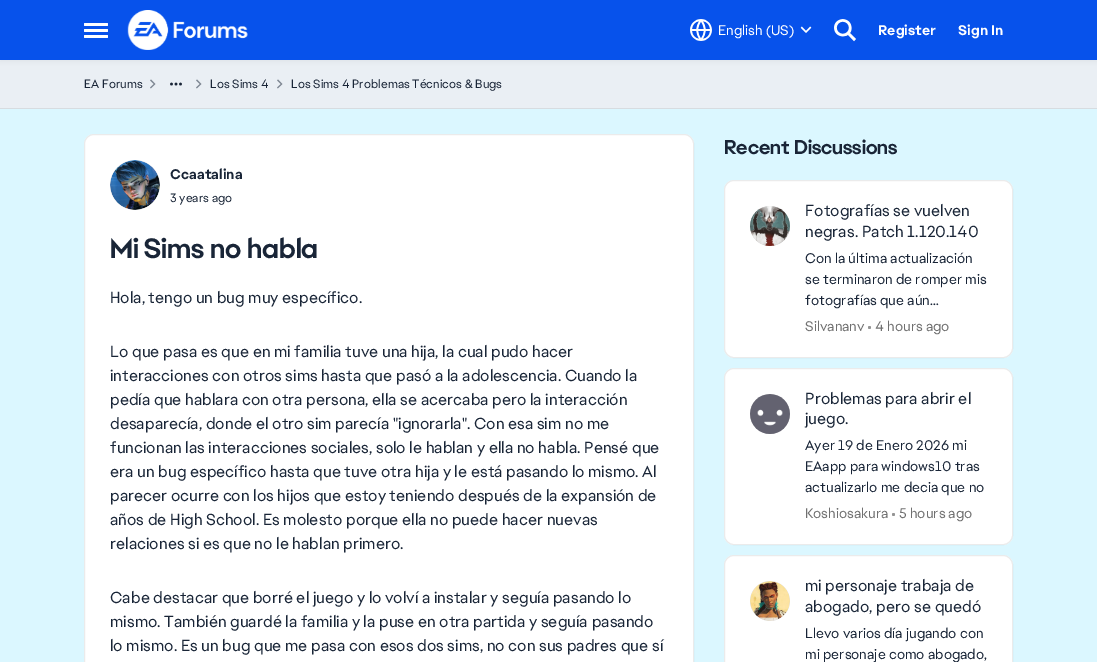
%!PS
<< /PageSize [1097 662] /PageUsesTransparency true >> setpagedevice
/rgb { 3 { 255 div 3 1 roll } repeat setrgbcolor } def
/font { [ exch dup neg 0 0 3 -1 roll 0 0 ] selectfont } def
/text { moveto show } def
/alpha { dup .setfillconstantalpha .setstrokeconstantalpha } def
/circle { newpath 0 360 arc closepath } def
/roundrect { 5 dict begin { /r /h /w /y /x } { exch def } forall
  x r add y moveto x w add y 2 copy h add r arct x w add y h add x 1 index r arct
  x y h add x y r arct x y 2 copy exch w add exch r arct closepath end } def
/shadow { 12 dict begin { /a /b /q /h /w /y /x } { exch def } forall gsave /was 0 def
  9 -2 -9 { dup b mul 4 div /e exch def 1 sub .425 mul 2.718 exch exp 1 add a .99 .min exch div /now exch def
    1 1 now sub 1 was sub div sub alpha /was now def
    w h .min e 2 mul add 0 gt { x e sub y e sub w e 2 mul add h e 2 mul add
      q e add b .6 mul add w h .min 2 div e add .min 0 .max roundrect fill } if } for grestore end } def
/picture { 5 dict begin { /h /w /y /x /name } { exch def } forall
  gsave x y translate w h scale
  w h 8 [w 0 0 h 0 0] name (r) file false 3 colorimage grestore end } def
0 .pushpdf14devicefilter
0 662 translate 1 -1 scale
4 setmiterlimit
234 239 244 rgb
0 0 1097 662 rectfill
51 51 51 rgb
0 2 1097 60 0 2 0.06 shadow
7 82 235 rgb
0 0 1097 60 rectfill
255 255 255 rgb
84 23 24 3 1 roundrect fill
84 29 24 3 1 roundrect fill
84 35 24 3 1 roundrect fill
(img_01.rgb) 127 10 121 40 picture
(img_02.rgb) 690 19 22 22 picture
(img_03.rgb) 800 26 12 7 picture
(img_04.rgb) 834 19 22 23 picture
215 220 224 rgb
0 108 1097 1 rectfill
(img_05.rgb) 150 79 6 10 picture
(img_06.rgb) 170 82 12 4 picture
(img_05.rgb) 196 79 6 10 picture
(img_05.rgb) 277 79 6 10 picture
219 247 255 rgb
0 109 1097 553 rectfill
255 255 255 rgb
84 134 610 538 10 roundrect fill
0.08 alpha
0 0 0 rgb
84.5 134.5 609 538 9.5 roundrect stroke
1 alpha
217 217 217 rgb
135 185 25 circle fill
(img_07.rgb) 110 160 50 50 picture
255 255 255 rgb
724 180 289 178 10 roundrect fill
0.08 alpha
0 0 0 rgb
724.5 180.5 288 177 9.5 roundrect stroke
1 alpha
217 217 217 rgb
770 226 20 circle fill
(img_08.rgb) 750 206 40 40 picture
148 148 148 rgb
869.5 327.5 1.5 circle fill
255 255 255 rgb
724 368 289 177 10 roundrect fill
0.08 alpha
0 0 0 rgb
724.5 368.5 288 176 9.5 roundrect stroke
1 alpha
217 217 217 rgb
770 414 20 circle fill
(img_09.rgb) 750 394 40 40 picture
148 148 148 rgb
893.5 514.5 1.5 circle fill
255 255 255 rgb
724 555 289 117 10 roundrect fill
0.08 alpha
0 0 0 rgb
724.5 555.5 288 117 9.5 roundrect stroke
1 alpha
217 217 217 rgb
770 601 20 circle fill
(img_10.rgb) 750 581 40 40 picture
/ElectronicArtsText-Regular 14 font
255 255 255 rgb
(English \(US\)) 718 35 text
/ElectronicArtsText-Bold 14 font
(Register) 878 35 text
(Sign In) 958 35 text
/ElectronicArtsText-Regular 12 font
25 37 55 rgb
(EA Forums) 84 88 text
(Los Sims 4) 210 88 text
(Los Sims 4 Problemas Técnicos & Bugs) 291 88 text
/ElectronicArtsText-Bold 14 font
(Ccaatalina) 170 179 text
/ElectronicArtsText-Regular 12 font
(3 years ago) 170 202 text
/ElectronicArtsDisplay-Bold 28 font
(Mi Sims no habla) 110 258 text
/ElectronicArtsText-Regular 16 font
(Hola, tengo un bug muy específico.) 110 303 text
(Lo que pasa es que en mi familia tuve una hija, la cual pudo hacer) 110 357 text
(interacciones con otros sims hasta que pasó a la adolescencia. Cuando la) 110 381 text
(pedía que hablara con otra persona, ella se acercaba pero la interacción) 110 405 text
(desaparecía, donde el otro sim parecía "ignorarla". Con esa sim no me) 110 429 text
(funcionan las interacciones sociales, solo le hablan y ella no habla. Pensé que) 110 453 text
(era un bug específico hasta que tuve otra hija y le está pasando lo mismo. Al) 110 477 text
(parecer ocurre con los hijos que estoy teniendo después de la expansión de) 110 501 text
(años de High School. Es molesto porque ella no puede hacer nuevas) 110 525 text
(relaciones si es que no le hablan primero.) 110 549 text
(Cabe destacar que borré el juego y lo volví a instalar y seguía pasando lo) 110 603 text
(mismo. También guardé la familia y la puse en otra partida y seguía pasando) 110 627 text
(lo mismo. Es un bug que me pasa con esos dos sims, no con sus padres que sí) 110 651 text
/ElectronicArtsDisplay-Bold 20 font
(Recent Discussions) 724 154 text
/ElectronicArtsText-Regular 16 font
(Fotografías se vuelven) 805 216 text
(negras. Patch 1.120.140) 805 237 text
/ElectronicArtsText-Regular 14 font
(Con la última actualización) 805 263 text
(se terminaron de romper mis) 805 284 text
(fotografías que aún…) 805 305 text
112 112 112 rgb
(Silvananv) 805 331 text
(4 hours ago) 875 331 text
/ElectronicArtsText-Regular 16 font
25 37 55 rgb
(Problemas para abrir el) 805 404 text
(juego.) 805 424 text
/ElectronicArtsText-Regular 14 font
(Ayer 19 de Enero 2026 mi) 805 450 text
(EAapp para windows10 tras) 805 471 text
(actualizarlo me decia que no) 805 492 text
112 112 112 rgb
(Koshiosakura) 805 518 text
(5 hours ago) 899 518 text
/ElectronicArtsText-Regular 16 font
25 37 55 rgb
(mi personaje trabaja de) 805 591 text
(abogado, pero se quedó) 805 612 text
/ElectronicArtsText-Regular 14 font
(Llevo varios día jugando con) 805 638 text
(mi personaje como abogado,) 805 659 text
.poppdf14devicefilter showpage
